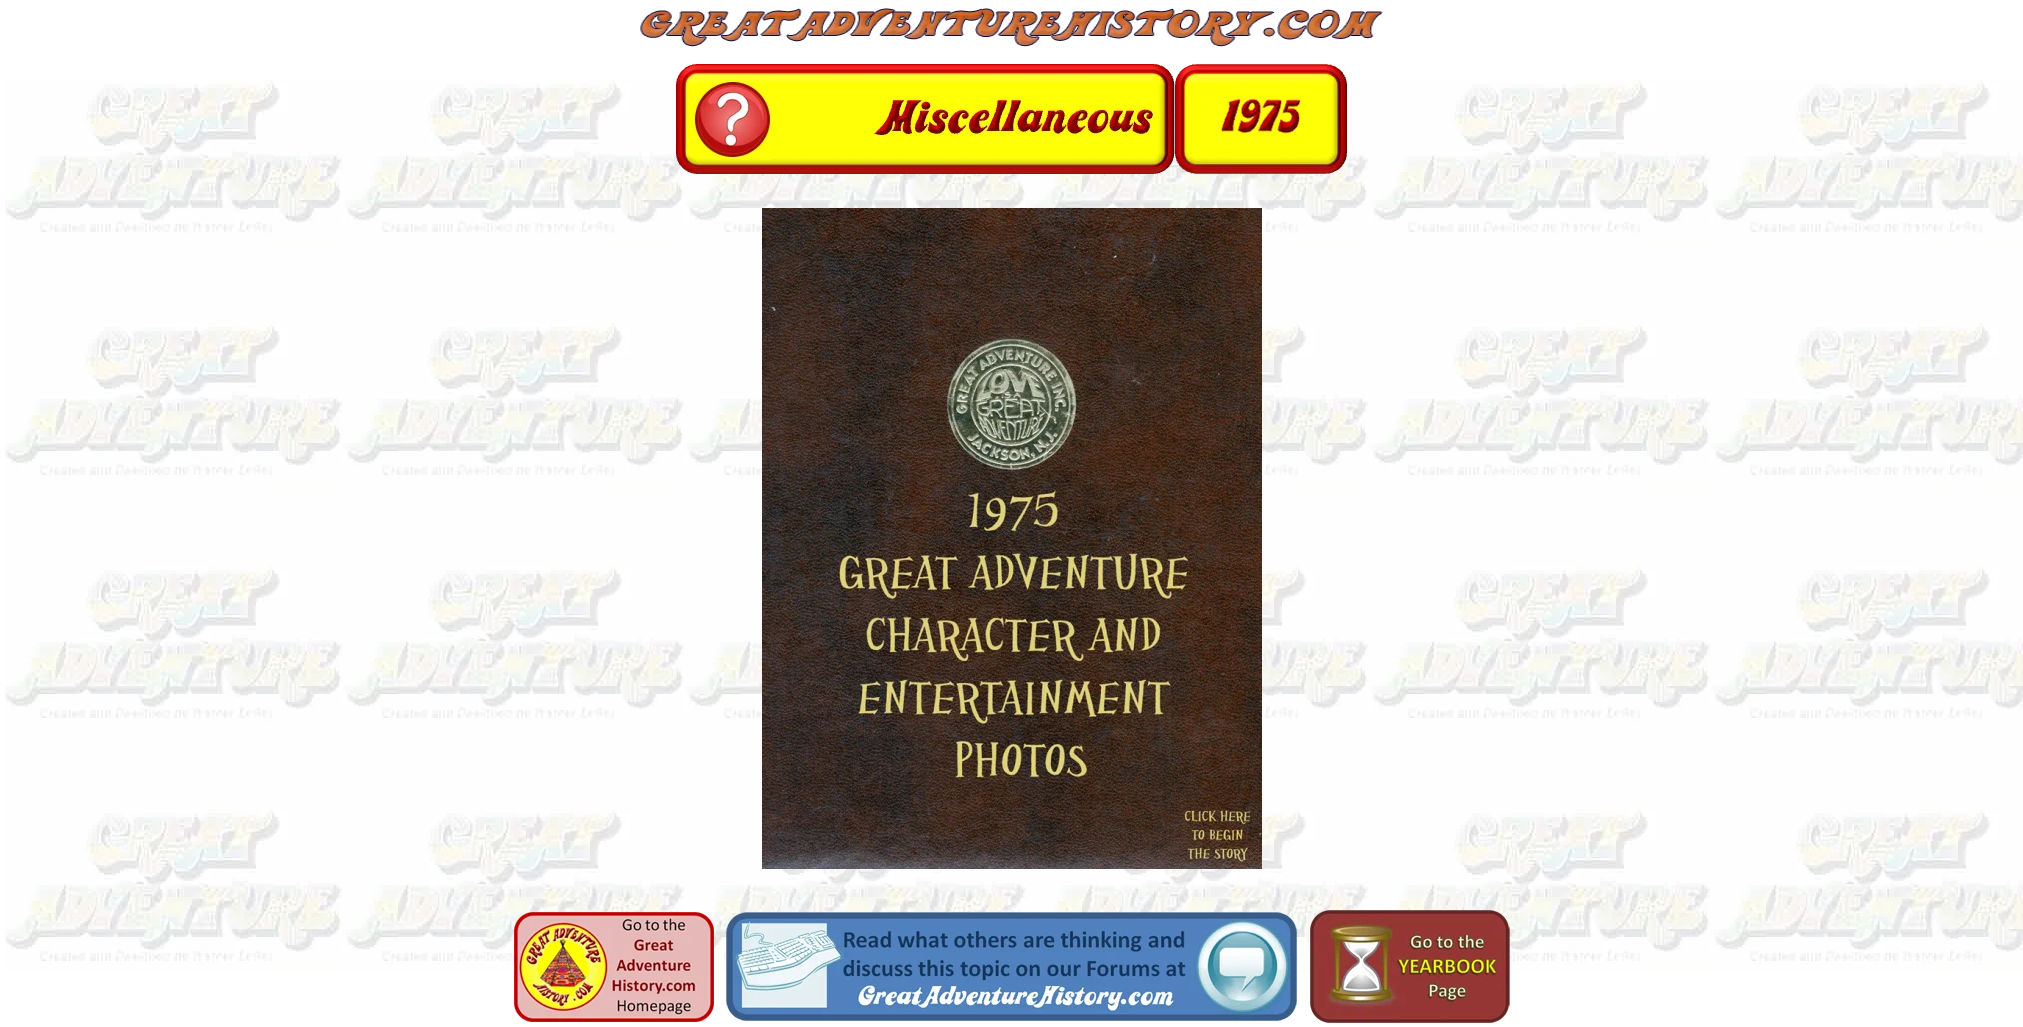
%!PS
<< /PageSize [2023 1027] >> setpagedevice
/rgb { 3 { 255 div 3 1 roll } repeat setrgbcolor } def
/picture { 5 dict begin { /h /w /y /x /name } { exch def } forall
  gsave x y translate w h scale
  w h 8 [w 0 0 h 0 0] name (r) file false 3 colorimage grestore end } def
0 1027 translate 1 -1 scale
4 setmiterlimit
255 255 255 rgb
0 0 2023 1027 rectfill
(img_01.rgb) 5 80 2018 892 picture
(img_02.rgb) 640 8 743 39 picture
(img_03.rgb) 676 64 499 110 picture
(img_04.rgb) 1175 64 172 110 picture
(img_05.rgb) 762 208 500 661 picture
(img_06.rgb) 514 912 200 110 picture
(img_07.rgb) 726 912 571 109 picture
(img_08.rgb) 1310 910 200 113 picture
showpage
